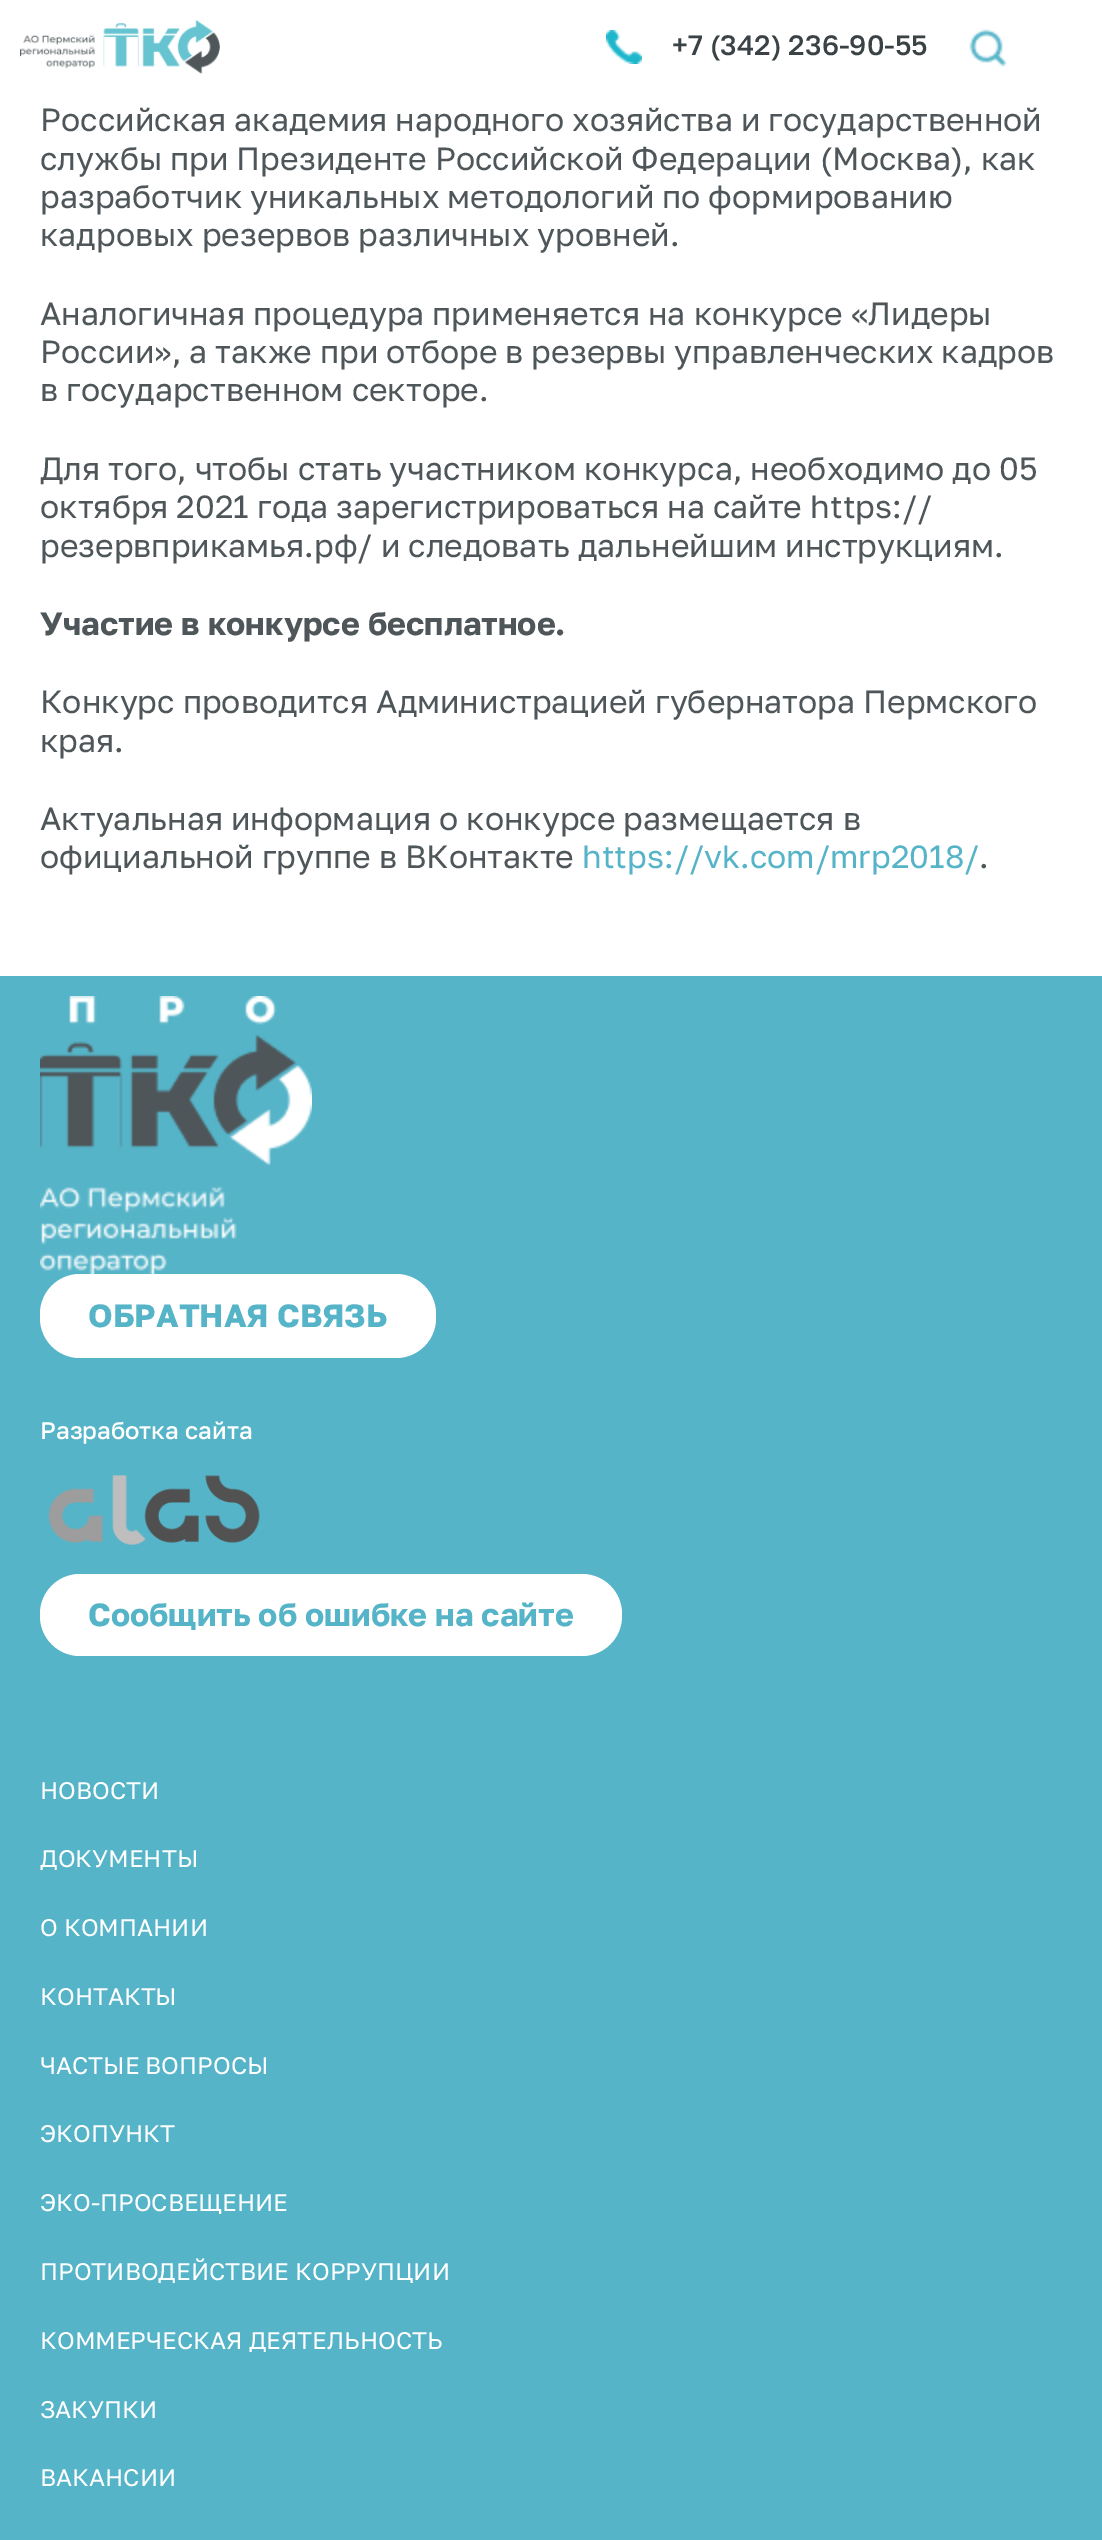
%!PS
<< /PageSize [1102 2540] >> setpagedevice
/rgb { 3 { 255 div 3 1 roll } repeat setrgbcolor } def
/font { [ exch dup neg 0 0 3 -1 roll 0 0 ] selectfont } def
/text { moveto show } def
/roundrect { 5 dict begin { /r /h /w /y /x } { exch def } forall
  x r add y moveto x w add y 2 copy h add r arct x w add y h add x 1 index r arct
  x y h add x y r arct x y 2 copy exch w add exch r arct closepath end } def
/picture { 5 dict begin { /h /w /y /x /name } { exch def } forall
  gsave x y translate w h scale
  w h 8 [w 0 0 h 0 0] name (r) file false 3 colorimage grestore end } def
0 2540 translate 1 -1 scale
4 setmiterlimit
255 255 255 rgb
0 0 1102 2540 rectfill
(img_01.rgb) 20 20 200 54 picture
(img_02.rgb) 606 30 36 34 picture
(img_03.rgb) 969 29 38 38 picture
86 180 200 rgb
0 976 1102 1564 rectfill
(img_04.rgb) 40 996 272 278 picture
255 255 255 rgb
40 1274 396 84 40 roundrect fill
(img_05.rgb) 48 1475 212 70 picture
40 1574 582 82 40 roundrect fill
/GolosText-Medium 28 font
58 66 70 rgb
(+7 \(342\) 236-90-55) 672 55 text
/GolosText-Regular 32 font
78 86 90 rgb
(Российская академия народного хозяйства и государственной) 40 131 text
(службы при Президенте Российской Федерации \(Москва\), как) 40 170 text
(разработчик уникальных методологий по формированию) 40 208 text
(кадровых резервов различных уровней.) 40 246 text
(Аналогичная процедура применяется на конкурсе «Лидеры) 40 325 text
(России», а также при отборе в резервы управленческих кадров) 40 363 text
(в государственном секторе.) 40 401 text
(Для того, чтобы стать участником конкурса, необходимо до 05) 40 480 text
(октября 2021 года зарегистрироваться на сайте https://) 40 518 text
(резервприкамья.рф/ и следовать дальнейшим инструкциям.) 40 557 text
/GolosText-Bold 32 font
(Участие в конкурсе бесплатное.) 40 635 text
/GolosText-Regular 32 font
(Конкурс проводится Администрацией губернатора Пермского) 40 713 text
(края.) 40 752 text
(Актуальная информация о конкурсе размещается в) 40 830 text
(официальной группе в ВКонтакте) 40 868 text
86 180 200 rgb
(https://vk.com/mrp2018/) 582 868 text
78 86 90 rgb
(.) 979 868 text
/GolosText-Bold 32 font
86 180 200 rgb
(ОБРАТНАЯ СВЯЗЬ) 88 1327 text
/GolosText-Medium 24 font
255 255 255 rgb
(Разработка сайта) 40 1439 text
/GolosText-Bold 32 font
86 180 200 rgb
(Cообщить об ошибке на сайте) 88 1626 text
/GolosText-Regular 24 font
255 255 255 rgb
(НОВОСТИ) 40 1799 text
(ДОКУМЕНТЫ) 40 1867 text
(О КОМПАНИИ) 40 1936 text
(КОНТАКТЫ) 40 2005 text
(ЧАСТЫЕ ВОПРОСЫ) 40 2074 text
(ЭКОПУНКТ) 40 2142 text
(ЭКО-ПРОСВЕЩЕНИЕ) 40 2211 text
(ПРОТИВОДЕЙСТВИЕ КОРРУПЦИИ) 40 2280 text
(КОММЕРЧЕСКАЯ ДЕЯТЕЛЬНОСТЬ) 40 2349 text
(ЗАКУПКИ) 40 2418 text
(ВАКАНСИИ) 40 2486 text
showpage
